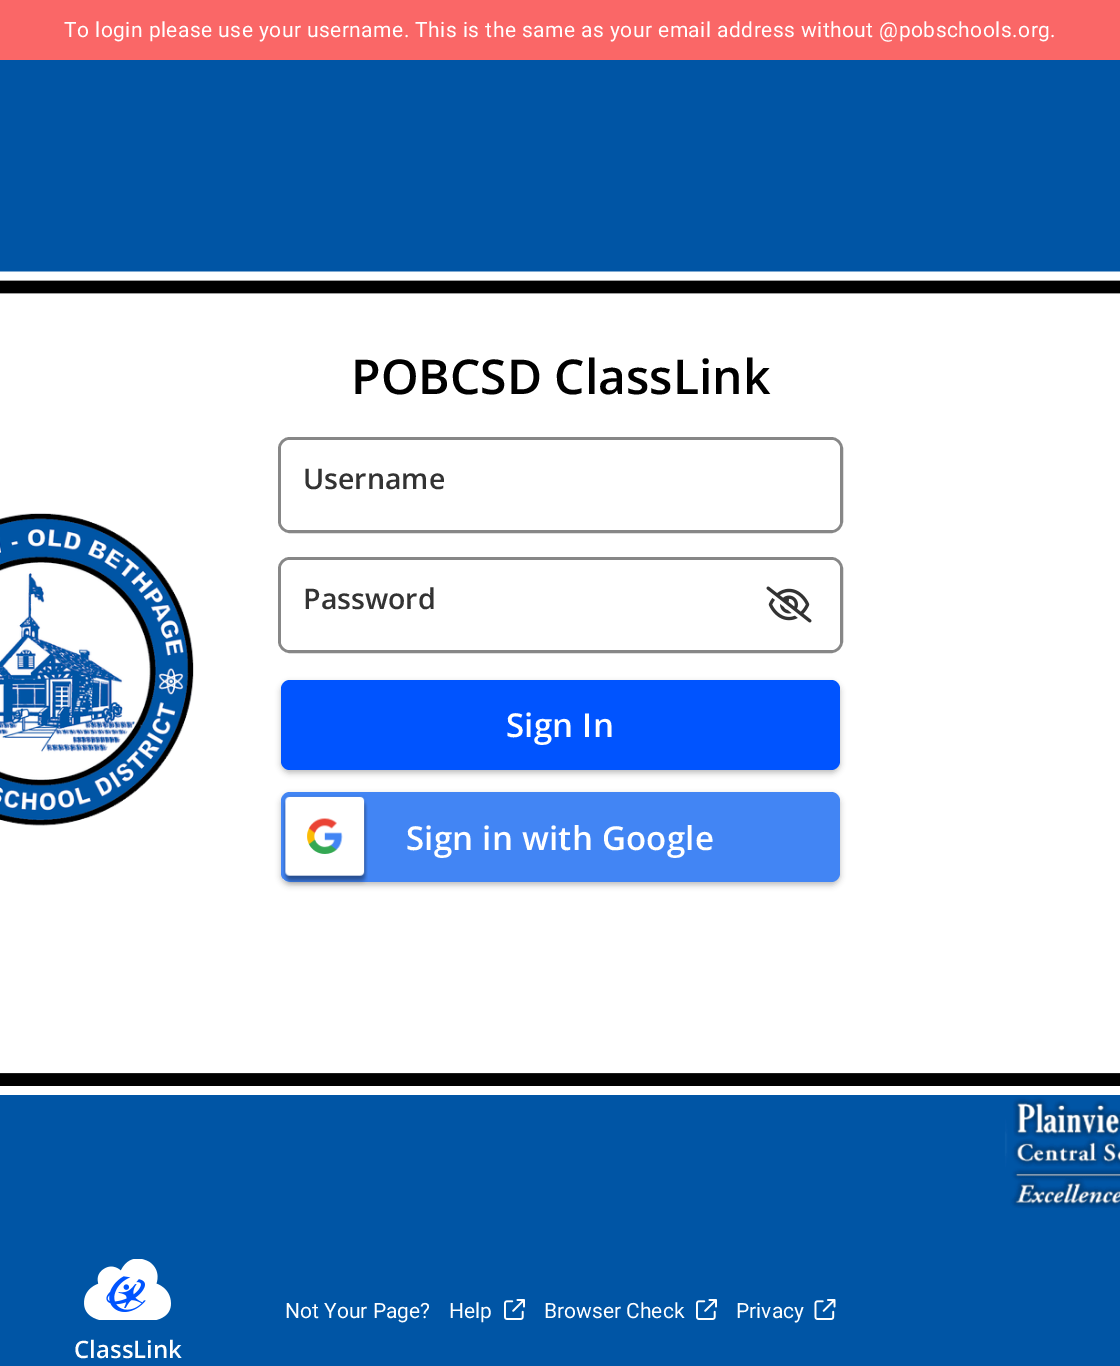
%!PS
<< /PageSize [1120 1366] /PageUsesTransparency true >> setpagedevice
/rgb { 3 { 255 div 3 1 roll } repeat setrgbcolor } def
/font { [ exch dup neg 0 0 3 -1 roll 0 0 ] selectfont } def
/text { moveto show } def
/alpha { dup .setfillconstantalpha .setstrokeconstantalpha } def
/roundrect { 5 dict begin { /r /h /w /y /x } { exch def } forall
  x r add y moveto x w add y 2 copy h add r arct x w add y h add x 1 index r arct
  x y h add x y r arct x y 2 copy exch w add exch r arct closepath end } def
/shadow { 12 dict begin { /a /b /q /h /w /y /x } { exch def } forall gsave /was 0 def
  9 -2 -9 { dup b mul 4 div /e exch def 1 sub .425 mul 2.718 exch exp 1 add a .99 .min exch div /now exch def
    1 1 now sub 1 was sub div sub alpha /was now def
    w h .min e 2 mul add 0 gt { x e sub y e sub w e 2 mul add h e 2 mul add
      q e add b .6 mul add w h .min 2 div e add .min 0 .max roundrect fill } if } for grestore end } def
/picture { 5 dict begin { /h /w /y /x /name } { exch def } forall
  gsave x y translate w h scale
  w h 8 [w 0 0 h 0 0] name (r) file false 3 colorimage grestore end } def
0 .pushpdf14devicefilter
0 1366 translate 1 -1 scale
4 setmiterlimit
255 255 255 rgb
0 0 1120 1366 rectfill
(img_01.rgb) 0 60 1120 1306 picture
250 103 103 rgb
0 0 1120 60 rectfill
135 135 135 rgb
3 setlinewidth
279.5 438.5 562 93 10.5 roundrect stroke
255 255 255 rgb
281 440 559 90 9 roundrect fill
135 135 135 rgb
279.5 558.5 562 93 10.5 roundrect stroke
255 255 255 rgb
281 560 559 90 9 roundrect fill
(img_02.rgb) 766 586 46 37 picture
0 0 0 rgb
281 683 559 90 9 3 0.25 shadow
0 84 255 rgb
281 680 559 90 9 roundrect fill
0 0 0 rgb
281 795 559 90 9 3 0.25 shadow
66 133 244 rgb
281 792 559 90 9 roundrect fill
(img_03.rgb) 283 795 85 91 picture
(img_04.rgb) 504 1299 21 21 picture
(img_04.rgb) 696 1299 21 21 picture
(img_05.rgb) 814 1299 22 21 picture
(img_06.rgb) 84 1259 87 61 picture
/Roboto-Regular 21 font
255 255 255 rgb
64 37 moveto 0.45 0 (To login please use your username. This is the same as your email address without @pobschools.org.) ashow
/OpenSans-SemiBold 48 font
0 0 0 rgb
(POBCSD ClassLink) 351 394 text
/OpenSans-SemiBold 28.5 font
51 51 51 rgb
(Username) 303 489 text
(Password) 303 609 text
/OpenSans-SemiBold 33 font
255 255 255 rgb
506 737 moveto 0.25 0 (Sign In) ashow
406 850 moveto 0.25 0 (Sign in with Google) ashow
/Roboto-Regular 21 font
(Not Your Page?) 285 1318 text
(Help) 449 1318 text
(Browser Check) 544 1318 text
(Privacy) 736 1318 text
/OpenSans-SemiBold 24 font
(ClassLink) 74 1358 text
.poppdf14devicefilter showpage
